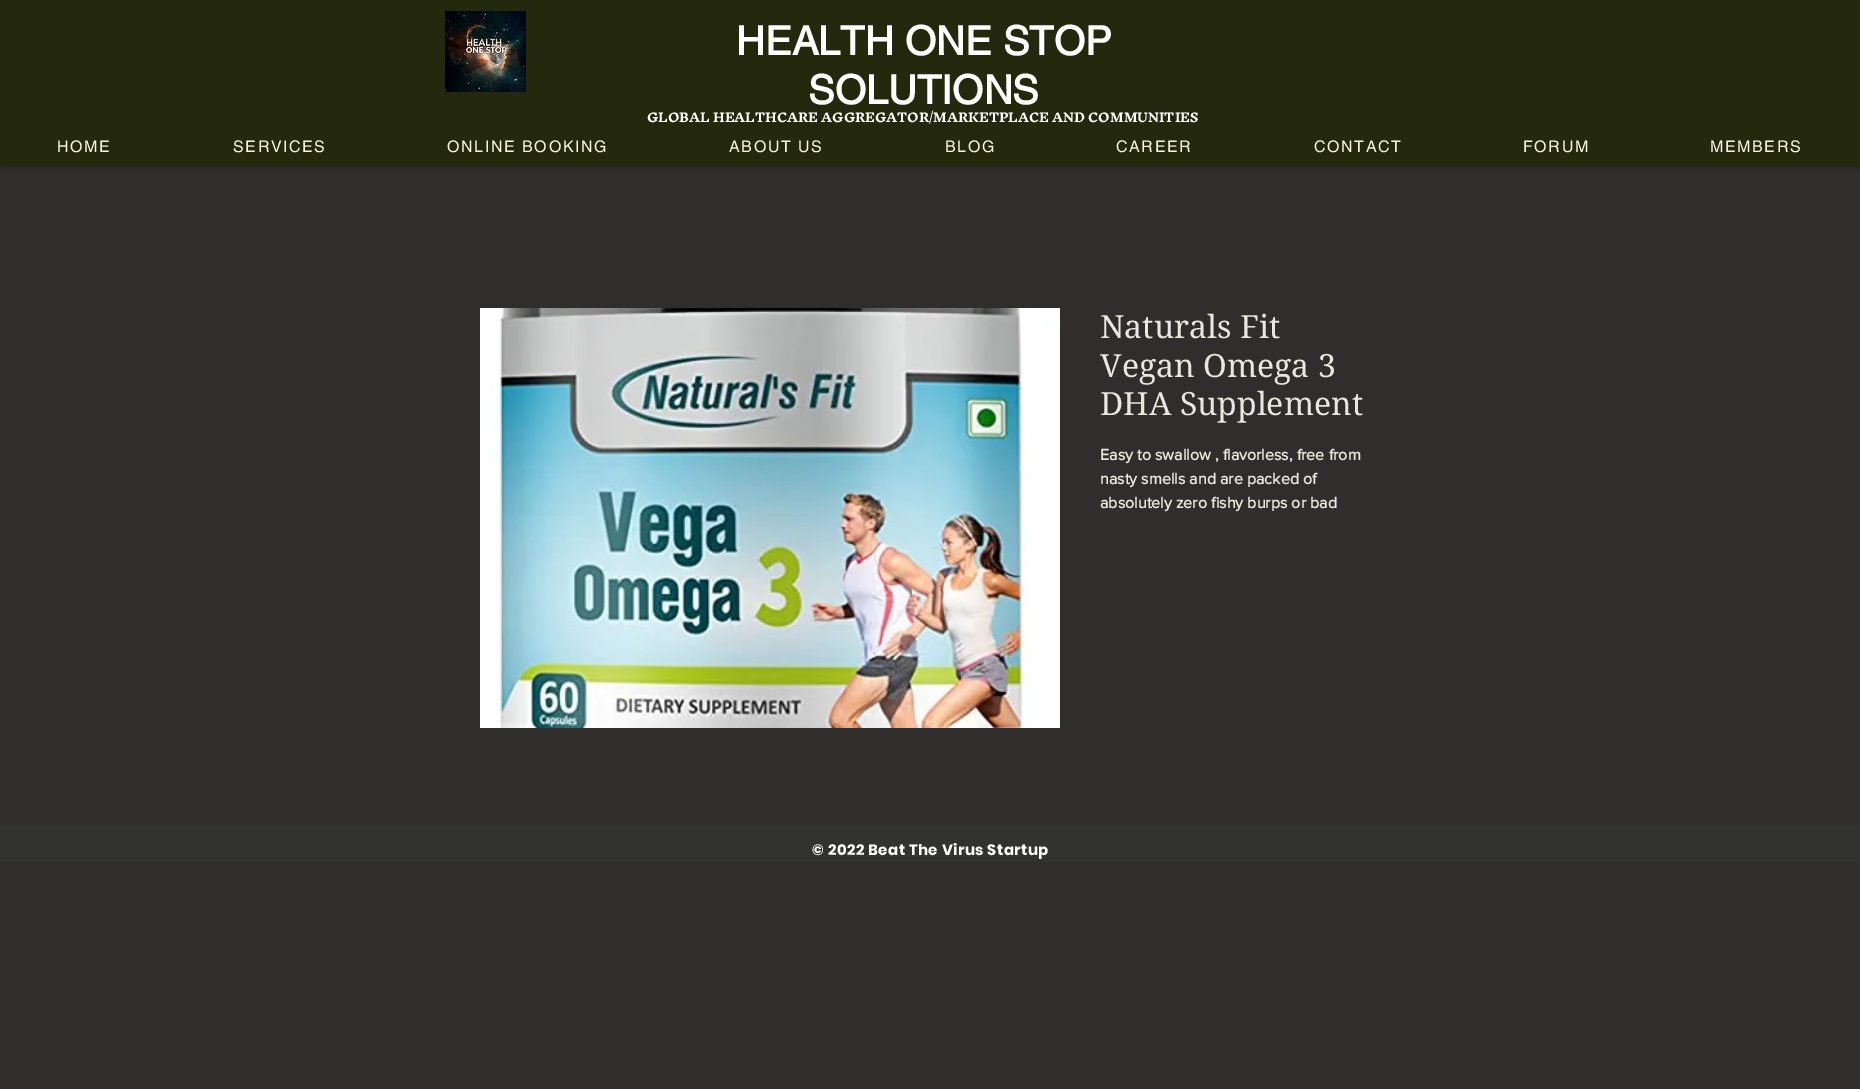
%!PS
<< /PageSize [1860 1089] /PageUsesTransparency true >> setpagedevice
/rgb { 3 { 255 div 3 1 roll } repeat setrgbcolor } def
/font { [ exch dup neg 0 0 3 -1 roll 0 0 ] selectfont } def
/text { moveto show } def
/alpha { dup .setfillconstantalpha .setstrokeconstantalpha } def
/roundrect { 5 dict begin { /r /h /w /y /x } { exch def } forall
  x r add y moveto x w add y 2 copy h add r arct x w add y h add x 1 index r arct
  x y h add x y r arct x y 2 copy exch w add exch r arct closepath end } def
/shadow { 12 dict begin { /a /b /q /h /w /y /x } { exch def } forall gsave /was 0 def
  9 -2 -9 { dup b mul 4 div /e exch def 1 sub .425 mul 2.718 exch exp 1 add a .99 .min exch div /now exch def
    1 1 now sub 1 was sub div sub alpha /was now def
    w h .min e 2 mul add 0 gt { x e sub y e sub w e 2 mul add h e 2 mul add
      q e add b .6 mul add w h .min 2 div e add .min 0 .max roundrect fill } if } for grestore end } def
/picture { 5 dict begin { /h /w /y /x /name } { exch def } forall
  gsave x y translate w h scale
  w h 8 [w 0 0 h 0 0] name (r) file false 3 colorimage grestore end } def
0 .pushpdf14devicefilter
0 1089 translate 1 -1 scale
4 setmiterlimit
47 46 44 rgb
0 0 1860 1089 rectfill
0 0 0 rgb
0 0 1860 166 0 2.5 0.5 shadow
36 41 14 rgb
0 0 1860 166 rectfill
(img_01.rgb) 445 11 81 81 picture
(img_02.rgb) 480 308 580 420 picture
50 50 49 rgb
0 825 1860 36 rectfill
/helvetica-Bold 40 font
255 255 255 rgb
(HEALTH ONE STOP) 736 55 text
(SOLUTIONS) 808 104 text
/InknutAntiqua-Bold 12 font
(GLOBAL HEALTHCARE AGGREGATOR/MARKETPLACE AND COMMUNITIES) 647 122 text
/helvetica-Regular 16 font
247 245 225 rgb
57 152 moveto 1.6 0 (HOME) ashow
233 152 moveto 1.6 0 (SERVICES) ashow
447 152 moveto 1.6 0 (ONLINE BOOKING) ashow
729 152 moveto 1.6 0 (ABOUT US) ashow
945 152 moveto 1.6 0 (BLOG) ashow
1116 152 moveto 1.6 0 (CAREER) ashow
1314 152 moveto 1.6 0 (CONTACT) ashow
1523 152 moveto 1.6 0 (FORUM) ashow
1710 152 moveto 1.6 0 (MEMBERS) ashow
/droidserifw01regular-Regular 32 font
234 231 221 rgb
(Naturals Fit) 1100 338 text
(Vegan Omega 3) 1100 377 text
(DHA Supplement) 1100 415 text
/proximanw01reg-Bold 16 font
(Easy to swallow , flavorless, free from) 1100 460 text
(nasty smells and are packed of) 1100 484 text
(absolutely zero fishy burps or bad) 1100 508 text
/Poppins-Bold 15 font
255 255 255 rgb
812 855 moveto 0.45 0 (© 2022 Beat The Virus Startup) ashow
.poppdf14devicefilter showpage
